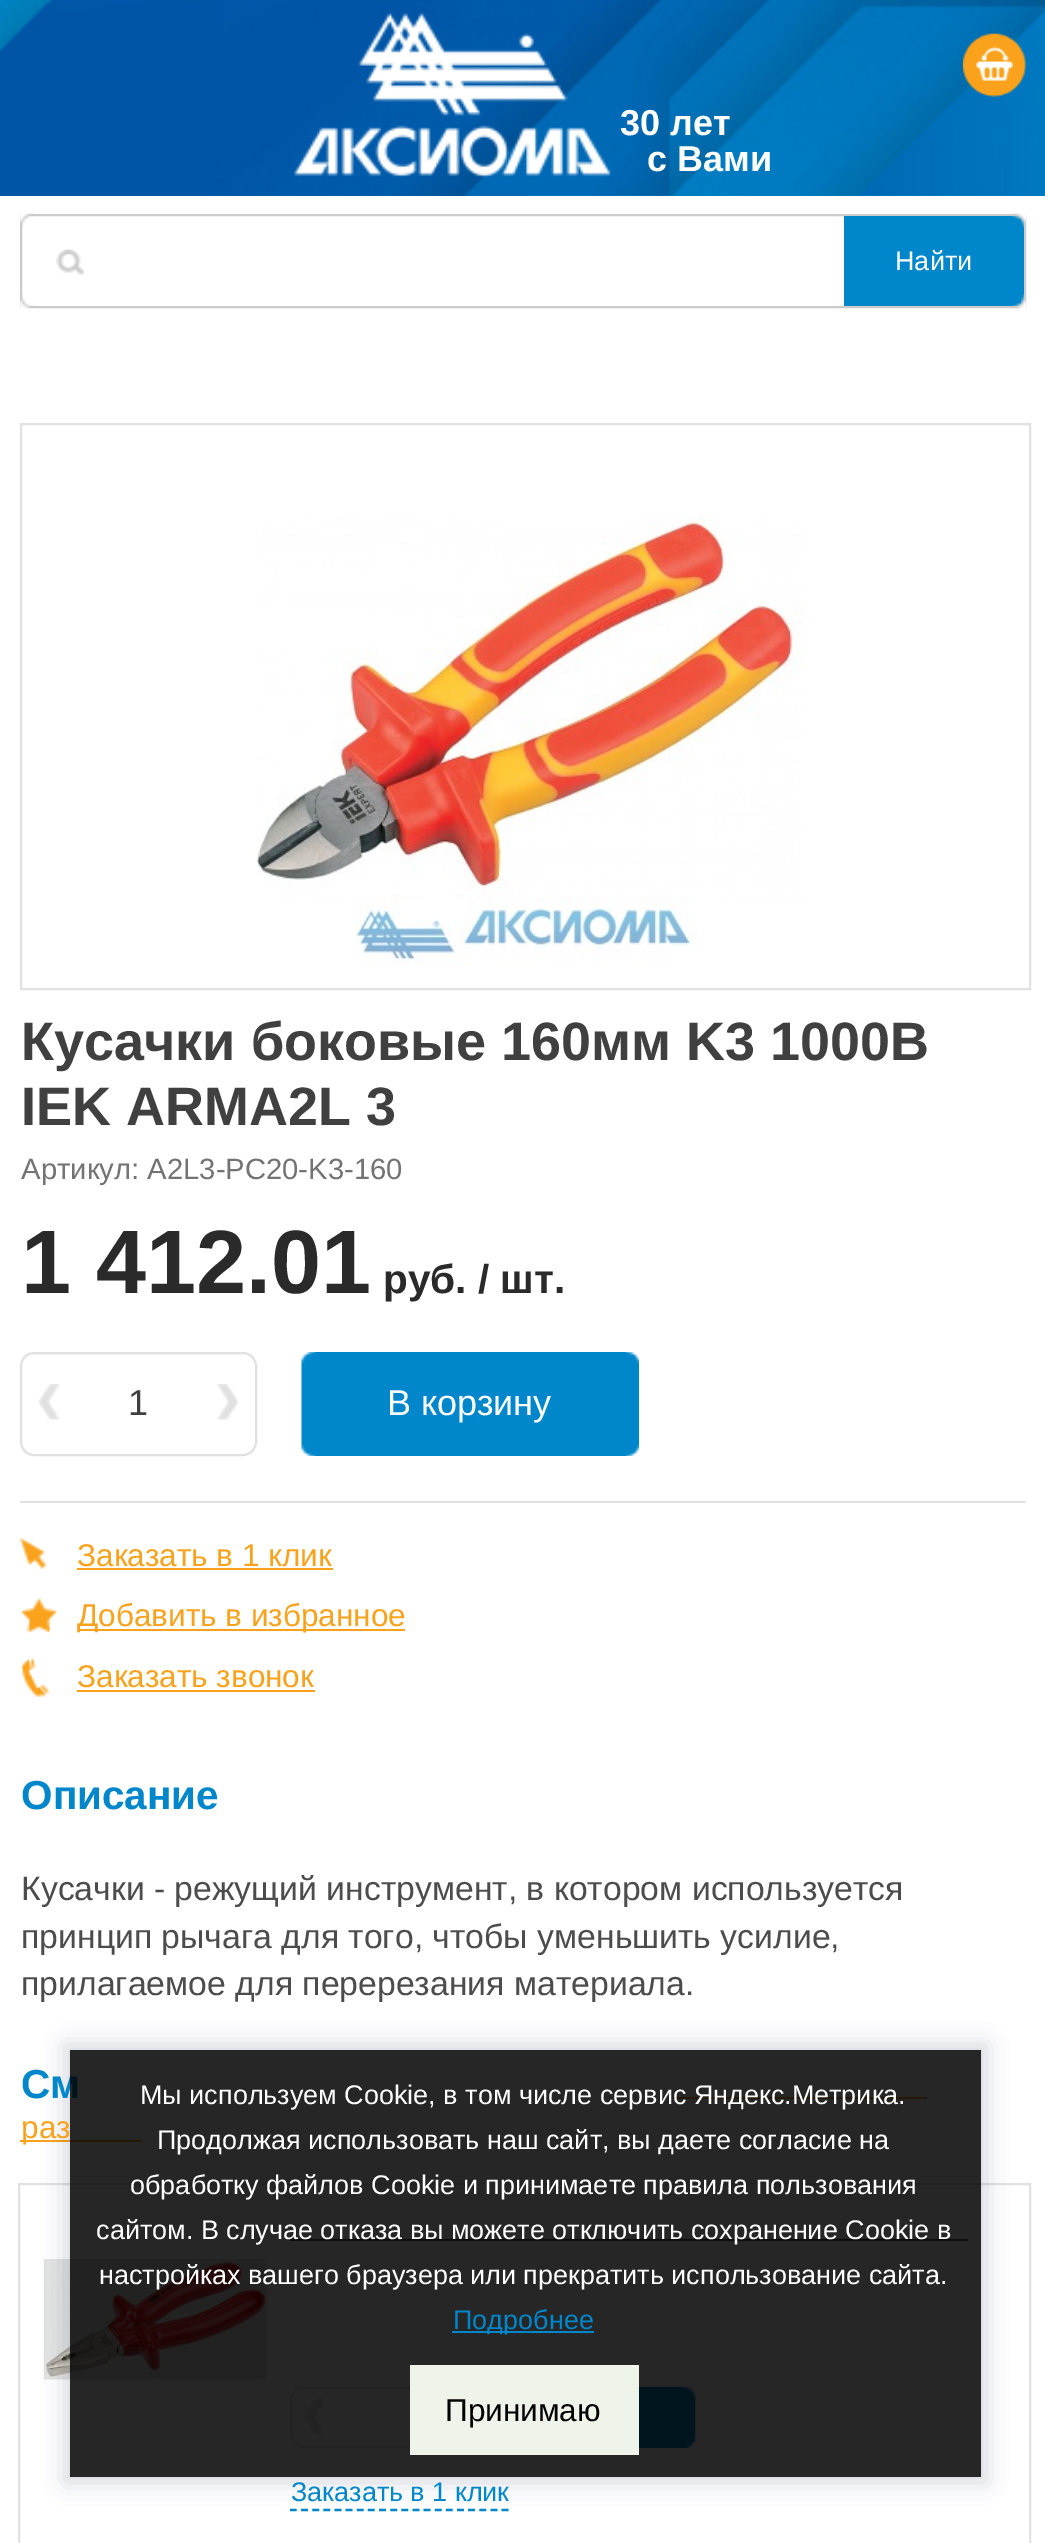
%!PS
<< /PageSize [1045 2543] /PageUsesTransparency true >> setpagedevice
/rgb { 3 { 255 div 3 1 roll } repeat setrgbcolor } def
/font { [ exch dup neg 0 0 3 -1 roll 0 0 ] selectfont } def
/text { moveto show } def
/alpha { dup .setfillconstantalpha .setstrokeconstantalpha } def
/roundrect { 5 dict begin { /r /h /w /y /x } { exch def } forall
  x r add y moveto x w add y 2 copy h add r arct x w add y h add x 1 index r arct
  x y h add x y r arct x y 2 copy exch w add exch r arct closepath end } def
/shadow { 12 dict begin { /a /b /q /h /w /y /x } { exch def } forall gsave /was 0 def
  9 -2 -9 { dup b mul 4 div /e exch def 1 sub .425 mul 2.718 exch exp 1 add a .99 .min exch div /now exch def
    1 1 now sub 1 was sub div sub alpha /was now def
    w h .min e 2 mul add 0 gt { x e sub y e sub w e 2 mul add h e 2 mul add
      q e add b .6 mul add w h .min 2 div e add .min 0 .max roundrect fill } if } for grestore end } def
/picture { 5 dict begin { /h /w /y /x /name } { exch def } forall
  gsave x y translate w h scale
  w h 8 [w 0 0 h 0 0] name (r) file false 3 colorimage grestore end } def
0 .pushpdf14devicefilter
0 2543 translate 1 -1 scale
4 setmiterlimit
255 255 255 rgb
0 0 1045 2543 rectfill
(img_01.rgb) 0 0 1045 196 picture
(img_02.rgb) 0 0 52 52 picture
(img_03.rgb) 963 33 63 64 picture
(img_04.rgb) 294 13 317 165 picture
203 203 203 rgb
2 setlinewidth
21 215 1004 92 rectstroke
(img_05.rgb) 20 213 14 15 picture
0 135 203 rgb
844 216 180 90 rectfill
(img_06.rgb) 1012 213 14 15 picture
(img_07.rgb) 56 249 29 26 picture
(img_08.rgb) 20 294 14 15 picture
(img_09.rgb) 1012 294 14 15 picture
225 225 225 rgb
21 424 1009 565 rectstroke
(img_10.rgb) 254 515 552 450 picture
21 1353 235 102 13 roundrect stroke
(img_11.rgb) 38 1384 22 36 picture
(img_12.rgb) 216 1384 22 36 picture
(img_13.rgb) 301 1352 14 104 picture
0 135 203 rgb
315 1352 311 104 rectfill
(img_14.rgb) 626 1352 13 104 picture
225 225 225 rgb
20 1501 1006 2 rectfill
(img_15.rgb) 20 1537 28 32 picture
250 162 27 rgb
77 1568 256 2 rectfill
(img_16.rgb) 20 1597 37 37 picture
77 1629 328 2 rectfill
(img_17.rgb) 20 1658 30 39 picture
77 1690 238 2 rectfill
673 2097 254 2 rectfill
20 2140 122 2 rectfill
225 225 225 rgb
19 2184 1011 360 rectstroke
76 76 76 rgb
290 2239 678 2 rectfill
(img_18.rgb) 43 2259 225 121 picture
225 225 225 rgb
291 2388 158 59 13 roundrect stroke
(img_19.rgb) 304 2398 22 37 picture
0 135 203 rgb
639 2387 43 61 rectfill
(img_20.rgb) 682 2387 14 61 picture
2.2 setlinewidth
[6.75 4.39] 0 setdash
290 2510 moveto 218.5 0 rlineto stroke
gsave
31 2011 moveto 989 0 rlineto 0 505 rlineto -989 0 rlineto closepath 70 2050 moveto 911 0 rlineto 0 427 rlineto -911 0 rlineto closepath eoclip newpath
34 60 80 rgb
65 2045 921 437 0 11 0.2 shadow
grestore
/Arimo-Bold 36 font
255 255 255 rgb
(30 лет) 620 135 text
(с Вами) 647 171 text
/LiberationSans-Regular 27 font
(Найти) 895 270 text
/Arimo-Bold 54 font
64 64 64 rgb
(Кусачки боковые 160мм K3 1000В) 21 1060 text
(IEK ARMA2L 3) 21 1125 text
/Arimo-Regular 29.25 font
115 115 115 rgb
(Артикул: A2L3-PC20-K3-160) 21 1179 text
/Arimo-Bold 90 font
43 42 42 rgb
(1 412.01) 21 1293 text
/Arimo-Bold 40.5 font
(руб. / шт.) 383 1293 text
/Arimo-Regular 36 font
64 64 64 rgb
(1) 128 1415 text
255 255 255 rgb
(В корзину) 387 1415 text
/Arimo-Regular 31.5 font
250 162 27 rgb
(Заказать в 1 клик) 77 1566 text
(Добавить в избранное) 77 1626 text
(Заказать звонок) 77 1687 text
/Arimo-Bold 40.5 font
0 135 203 rgb
(Описание) 21 1809 text
/Arimo-Regular 33.75 font
76 76 76 rgb
(Кусачки - режущий инструмент, в котором используется) 21 1900 text
(принцип рычага для того, чтобы уменьшить усилие,) 21 1948 text
(прилагаемое для перерезания материала.) 21 1995 text
/Arimo-Bold 40.5 font
0 135 203 rgb
(См) 21 2098 text
/Arimo-Regular 31.5 font
250 162 27 rgb
(раз) 21 2138 text
/Arimo-Regular 27 font
0 135 203 rgb
(Заказать в 1 клик) 291 2501 text
0.85 alpha
0 0 0 rgb
70 2050 911 427 rectfill
1 alpha
255 255 255 rgb
(Мы используем Cookie, в том числе сервис Яндекс.Метрика.) 140 2104 text
(Продолжая использовать наш сайт, вы даете согласие на) 157 2149 text
(обработку файлов Cookie и принимаете правила пользования) 130 2194 text
(сайтом. В случае отказа вы можете отключить сохранение Cookie в) 96 2239 text
(настройках вашего браузера или прекратить использование сайта.) 99 2284 text
0 135 203 rgb
452 2331 142 2 rectfill
(Подробнее) 453 2329 text
239 244 235 rgb
410 2365 229 90 rectfill
/LiberationSans-Regular 31.5 font
0 0 0 rgb
(Принимаю) 445 2421 text
.poppdf14devicefilter showpage
